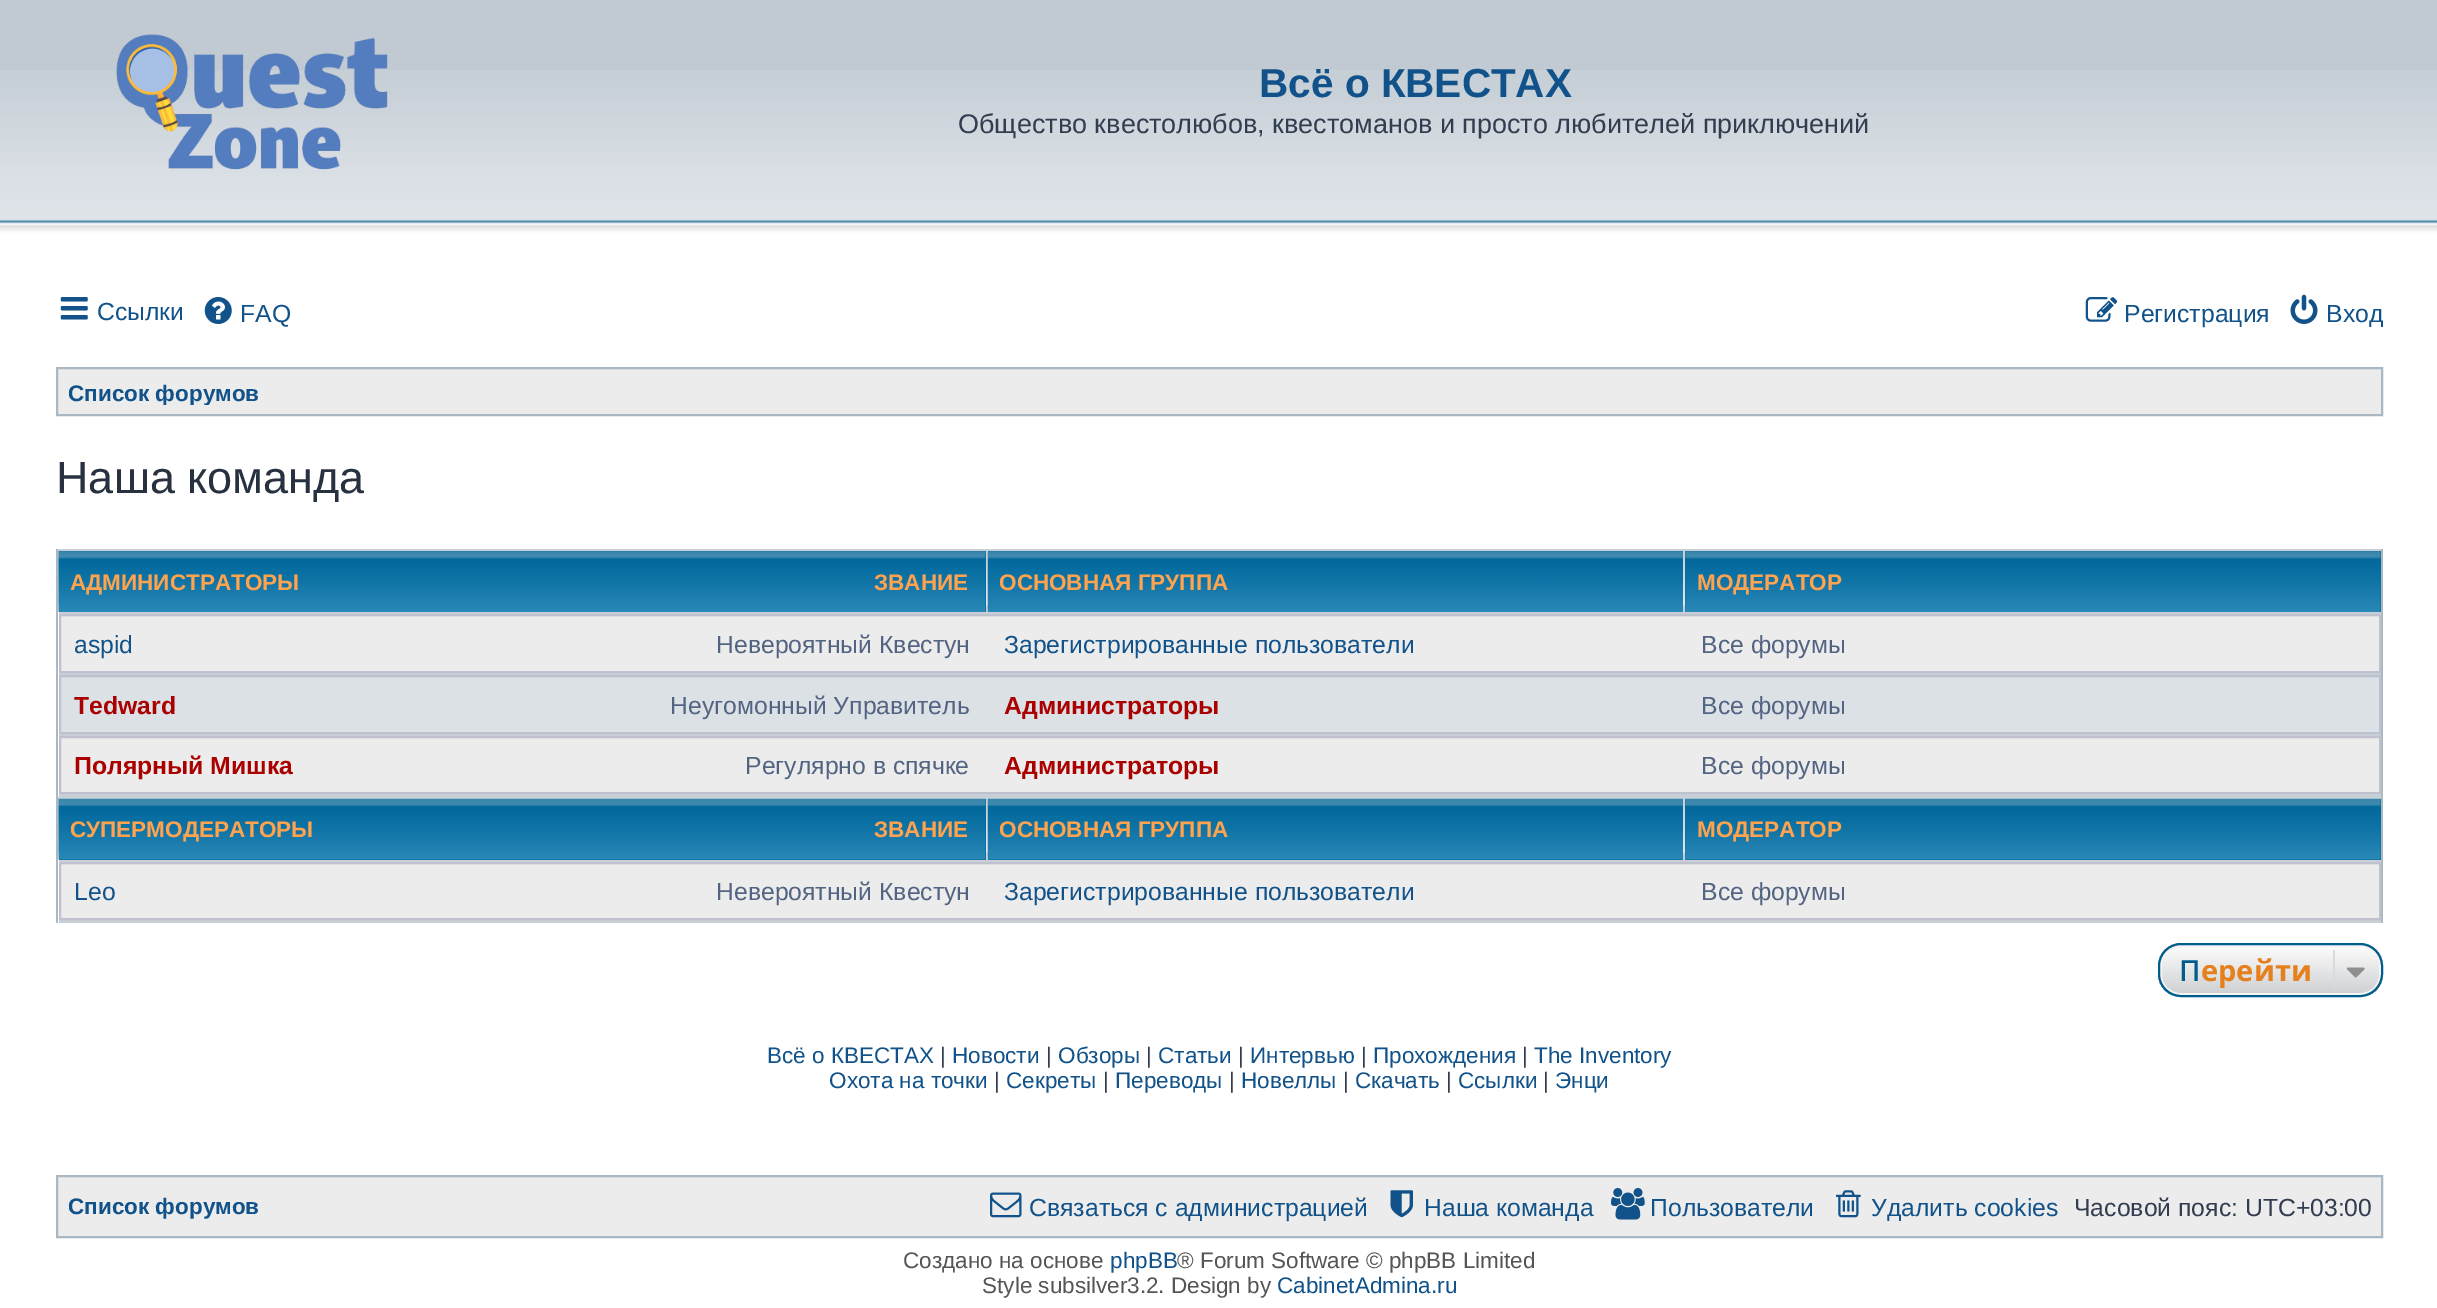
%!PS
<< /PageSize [2437 1308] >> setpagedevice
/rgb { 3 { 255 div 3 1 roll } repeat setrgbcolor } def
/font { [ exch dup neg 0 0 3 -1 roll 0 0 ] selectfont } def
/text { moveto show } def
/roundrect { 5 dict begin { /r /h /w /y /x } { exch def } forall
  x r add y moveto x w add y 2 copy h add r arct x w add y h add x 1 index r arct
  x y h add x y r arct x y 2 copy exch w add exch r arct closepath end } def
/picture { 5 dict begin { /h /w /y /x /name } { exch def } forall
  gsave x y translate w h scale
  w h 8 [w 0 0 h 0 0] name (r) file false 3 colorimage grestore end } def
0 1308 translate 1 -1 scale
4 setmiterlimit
255 255 255 rgb
0 0 2437 1308 rectfill
193 202 210 rgb
0 0 2437 70 rectfill
(img_01.rgb) 0 70 2437 175 picture
(img_02.rgb) 116 34 272 136 picture
(img_03.rgb) 60 297 28 23 picture
(img_04.rgb) 204 297 28 27 picture
(img_05.rgb) 2085 297 33 25 picture
(img_06.rgb) 2290 294 28 30 picture
236 236 236 rgb
57 368 moveto 2325 0 rlineto 0 47 rlineto -2325 0 rlineto closepath gsave fill grestore
169 184 194 rgb
2 setlinewidth
stroke
199 208 215 rgb
59 605 2322 192 rectfill
(img_07.rgb) 58 549 2323 57 picture
169 184 194 rgb
2381 549 2 248 rectfill
56 549 2 248 rectfill
0 102 153 rgb
59 551 927 61 rectfill
(img_08.rgb) 58 551 928 61 picture
(img_09.rgb) 987 551 696 61 picture
1685 551 696 61 rectfill
(img_10.rgb) 1685 551 696 61 picture
236 236 236 rgb
60 615 moveto 2320 0 rlineto 0 57 rlineto -2320 0 rlineto closepath gsave fill grestore
191 193 207 rgb
stroke
220 225 229 rgb
60 676 moveto 2320 0 rlineto 0 57 rlineto -2320 0 rlineto closepath gsave fill grestore
191 193 207 rgb
stroke
236 236 236 rgb
60 737 moveto 2320 0 rlineto 0 56 rlineto -2320 0 rlineto closepath gsave fill grestore
191 193 207 rgb
stroke
199 208 215 rgb
59 852 2322 71 rectfill
(img_11.rgb) 56 796 2327 57 picture
169 184 194 rgb
2381 797 2 126 rectfill
56 797 2 126 rectfill
0 102 153 rgb
59 799 927 61 rectfill
(img_12.rgb) 58 798 928 62 picture
988 859 695 1 rectfill
(img_13.rgb) 987 798 696 62 picture
1685 799 696 61 rectfill
(img_14.rgb) 1685 798 696 62 picture
236 236 236 rgb
60 863 moveto 2320 0 rlineto 0 56 rlineto -2320 0 rlineto closepath gsave fill grestore
191 193 207 rgb
stroke
gsave
2158 943 225 54 23 roundrect clip newpath
gsave 2158 945 moveto 225 0 rlineto 0 50 rlineto -225 0 rlineto closepath clip newpath
<< /ShadingType 2 /ColorSpace /DeviceRGB /Coords [2270 945 2270 995] /Extend [true true] /Function << /FunctionType 2 /Domain [0 1] /C0 [0.992 0.992 0.992] /C1 [0.804 0.812 0.82] /N 1 >> >> shfill grestore
grestore
244 244 244 rgb
2161 946 219 48 19 roundrect stroke
0 92 139 rgb
2159 944 223 52 22 roundrect stroke
218 218 218 rgb
2333 950 2 40 rectfill
(img_15.rgb) 2346 967 19 11 picture
236 236 236 rgb
57 1176 moveto 2325 0 rlineto 0 61 rlineto -2325 0 rlineto closepath gsave fill grestore
169 184 194 rgb
stroke
(img_16.rgb) 990 1192 32 26 picture
(img_17.rgb) 1390 1190 23 28 picture
(img_18.rgb) 1611 1188 34 32 picture
(img_19.rgb) 1836 1190 25 28 picture
/LiberationSans-Bold 40.5 font
16 82 137 rgb
(Всё о КВЕСТАХ) 1259 97 text
/LiberationSans-Regular 27 font
50 61 79 rgb
(Общество квестолюбов, квестоманов и просто любителей приключений) 958 133 text
/LiberationSans-Regular 24.75 font
16 82 137 rgb
(Ссылки) 97 320 text
(FAQ) 240 322 text
(Регистрация) 2124 322 text
(Вход) 2326 322 text
gsave
68 380 191 25 rectclip
/LiberationSans-Bold 22.5 font
(Список форумов) 68 401 text
grestore
/LiberationSans-Regular 45 font
40 49 63 rgb
(Наша команда) 56 493 text
/LiberationSans-Bold 22.5 font
255 163 79 rgb
(АДМИНИСТРАТОРЫ) 70 590 text
(ЗВАНИЕ) 874 590 text
(ОСНОВНАЯ ГРУППА) 999 590 text
(МОДЕРАТОР) 1697 590 text
/LiberationSans-Regular 24.75 font
16 82 137 rgb
(aspid) 74 653 text
83 100 130 rgb
(Невероятный Квестун) 716 653 text
16 82 137 rgb
(Зарегистрированные пользователи) 1004 653 text
83 100 130 rgb
(Все форумы) 1701 653 text
/LiberationSans-Bold 24.75 font
170 0 0 rgb
(Tedward) 74 714 text
/LiberationSans-Regular 24.75 font
83 100 130 rgb
(Неугомонный Управитель) 670 714 text
/LiberationSans-Bold 24.75 font
170 0 0 rgb
(Администраторы) 1004 714 text
/LiberationSans-Regular 24.75 font
83 100 130 rgb
(Все форумы) 1701 714 text
/LiberationSans-Bold 24.75 font
170 0 0 rgb
(Полярный Мишка) 74 774 text
/LiberationSans-Regular 24.75 font
83 100 130 rgb
(Регулярно в спячке) 745 774 text
/LiberationSans-Bold 24.75 font
170 0 0 rgb
(Администраторы) 1004 774 text
/LiberationSans-Regular 24.75 font
83 100 130 rgb
(Все форумы) 1701 774 text
/LiberationSans-Bold 22.5 font
255 163 79 rgb
(СУПЕРМОДЕРАТОРЫ) 70 837 text
(ЗВАНИЕ) 874 837 text
(ОСНОВНАЯ ГРУППА) 999 837 text
(МОДЕРАТОР) 1697 837 text
/LiberationSans-Regular 24.75 font
16 82 137 rgb
(Leo) 74 900 text
83 100 130 rgb
(Невероятный Квестун) 716 900 text
16 82 137 rgb
(Зарегистрированные пользователи) 1004 900 text
83 100 130 rgb
(Все форумы) 1701 900 text
/NotoSans-Medium 29 font
0 92 139 rgb
(П) 2179 981 text
/OpenSans-Bold 29 font
229 128 28 rgb
(ерейти) 2201 981 text
/LiberationSans-Regular 22.5 font
16 82 137 rgb
(Всё о КВЕСТАХ) 767 1063 text
50 61 79 rgb
(|) 940 1063 text
16 82 137 rgb
(Новости) 952 1063 text
50 61 79 rgb
(|) 1046 1063 text
16 82 137 rgb
(Обзоры) 1058 1063 text
50 61 79 rgb
(|) 1146 1063 text
16 82 137 rgb
(Статьи) 1158 1063 text
50 61 79 rgb
(|) 1238 1063 text
16 82 137 rgb
(Интервью) 1250 1063 text
50 61 79 rgb
(|) 1361 1063 text
16 82 137 rgb
(Прохождения) 1373 1063 text
50 61 79 rgb
(|) 1522 1063 text
16 82 137 rgb
(The Inventory) 1534 1063 text
(Охота на точки) 829 1088 text
50 61 79 rgb
(|) 994 1088 text
16 82 137 rgb
(Секреты) 1006 1088 text
50 61 79 rgb
(|) 1103 1088 text
16 82 137 rgb
(Переводы) 1115 1088 text
50 61 79 rgb
(|) 1229 1088 text
16 82 137 rgb
(Новеллы) 1241 1088 text
50 61 79 rgb
(|) 1343 1088 text
16 82 137 rgb
(Скачать) 1355 1088 text
50 61 79 rgb
(|) 1446 1088 text
16 82 137 rgb
(Ссылки) 1458 1088 text
50 61 79 rgb
(|) 1543 1088 text
16 82 137 rgb
(Энци) 1555 1088 text
/LiberationSans-Bold 22.5 font
(Список форумов) 68 1214 text
/LiberationSans-Regular 24.75 font
(Связаться с администрацией) 1029 1216 text
(Наша команда) 1424 1216 text
(Пользователи) 1650 1216 text
(Удалить cookies) 1871 1216 text
50 61 79 rgb
(Часовой пояс: UTC+03:00) 2074 1216 text
/LiberationSans-Regular 22.5 font
85 85 85 rgb
(Создано на основе) 903 1268 text
16 82 137 rgb
(phpBB) 1110 1268 text
85 85 85 rgb
(® Forum Software © phpBB Limited) 1177 1268 text
(Style subsilver3.2. Design by) 982 1293 text
16 82 137 rgb
(CabinetAdmina.ru) 1277 1293 text
showpage
